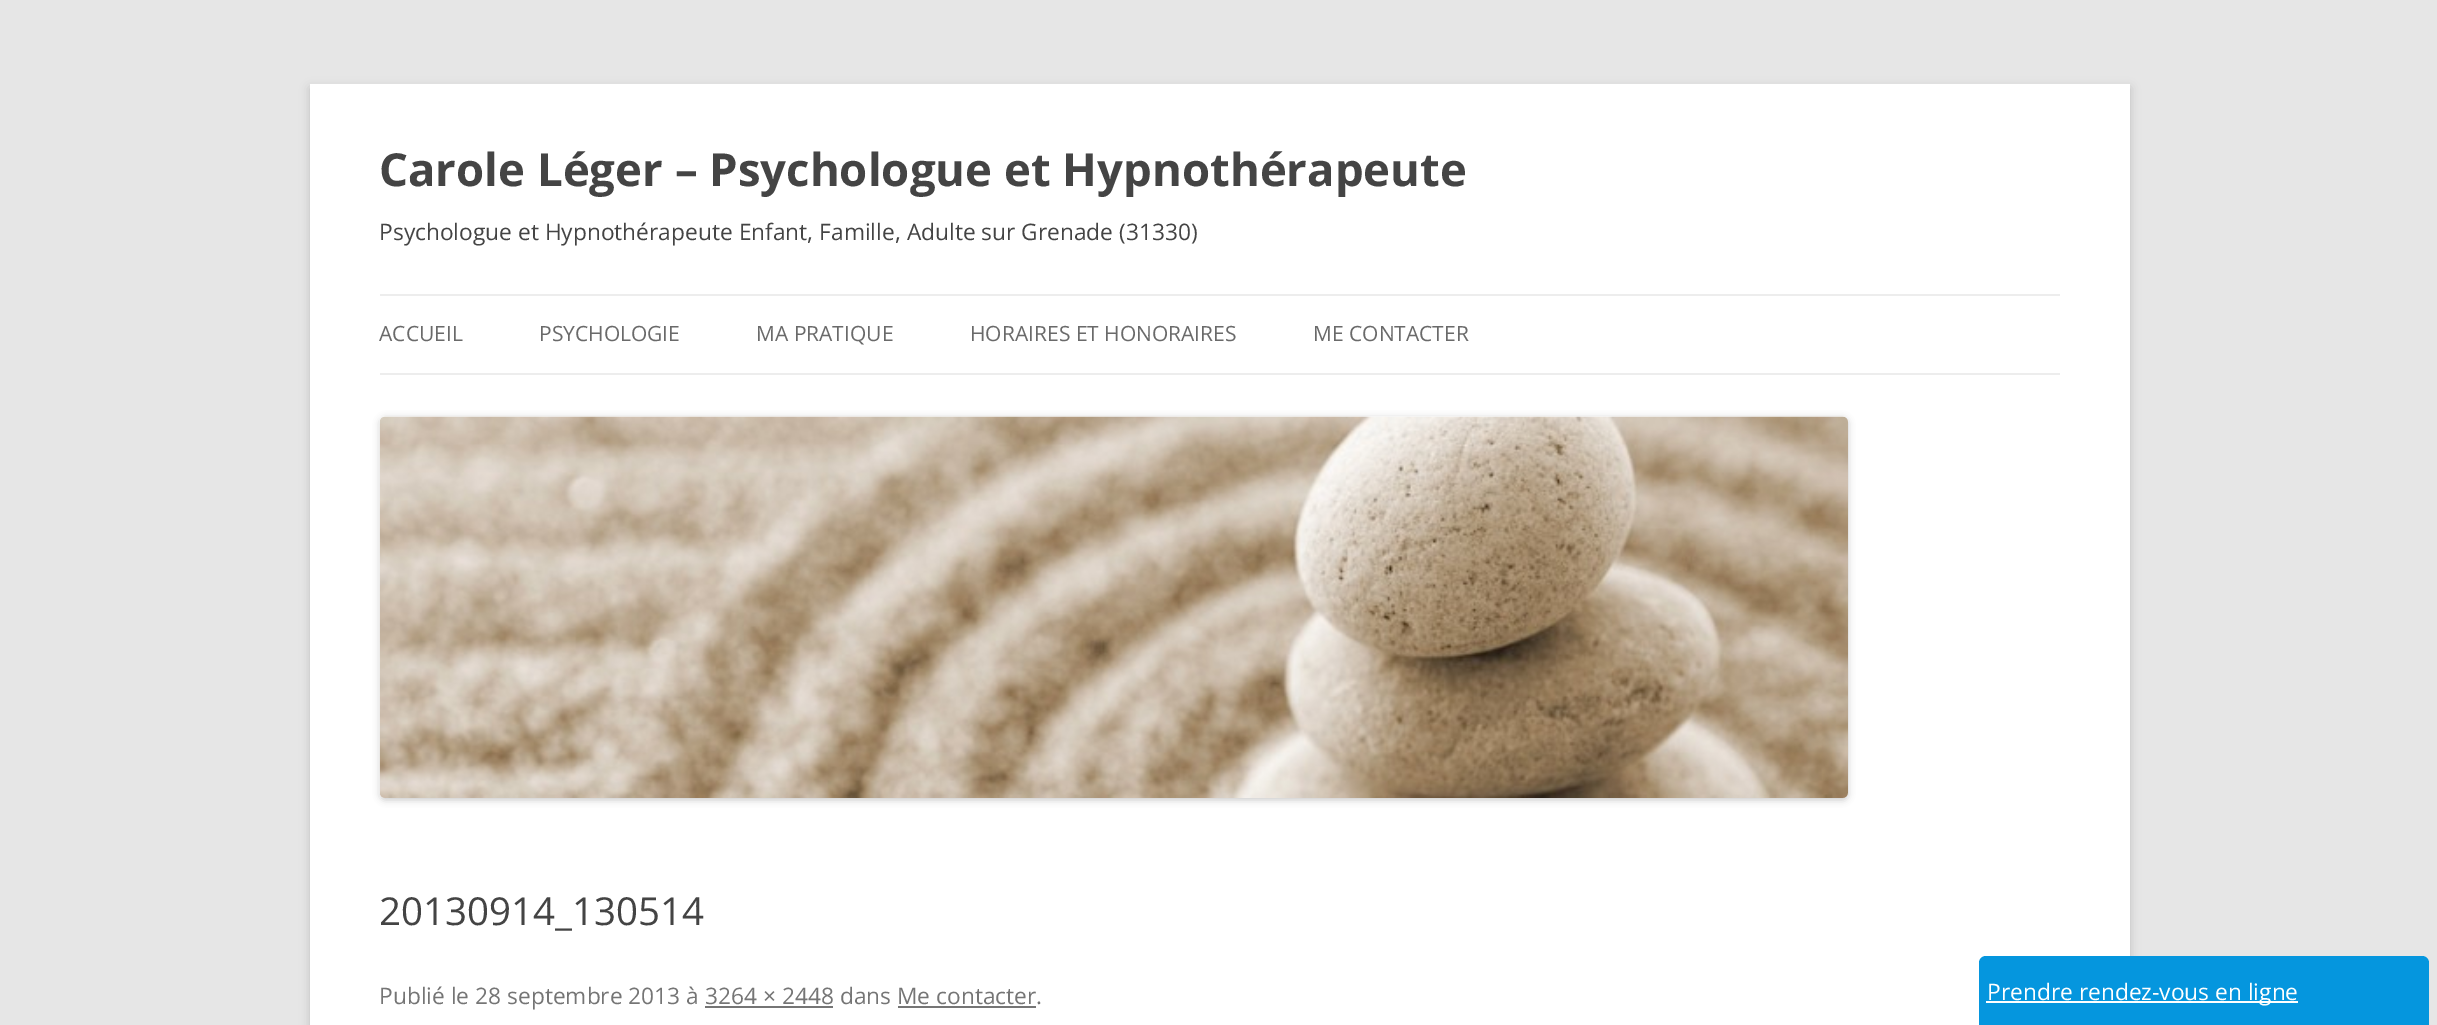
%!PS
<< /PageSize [2437 1025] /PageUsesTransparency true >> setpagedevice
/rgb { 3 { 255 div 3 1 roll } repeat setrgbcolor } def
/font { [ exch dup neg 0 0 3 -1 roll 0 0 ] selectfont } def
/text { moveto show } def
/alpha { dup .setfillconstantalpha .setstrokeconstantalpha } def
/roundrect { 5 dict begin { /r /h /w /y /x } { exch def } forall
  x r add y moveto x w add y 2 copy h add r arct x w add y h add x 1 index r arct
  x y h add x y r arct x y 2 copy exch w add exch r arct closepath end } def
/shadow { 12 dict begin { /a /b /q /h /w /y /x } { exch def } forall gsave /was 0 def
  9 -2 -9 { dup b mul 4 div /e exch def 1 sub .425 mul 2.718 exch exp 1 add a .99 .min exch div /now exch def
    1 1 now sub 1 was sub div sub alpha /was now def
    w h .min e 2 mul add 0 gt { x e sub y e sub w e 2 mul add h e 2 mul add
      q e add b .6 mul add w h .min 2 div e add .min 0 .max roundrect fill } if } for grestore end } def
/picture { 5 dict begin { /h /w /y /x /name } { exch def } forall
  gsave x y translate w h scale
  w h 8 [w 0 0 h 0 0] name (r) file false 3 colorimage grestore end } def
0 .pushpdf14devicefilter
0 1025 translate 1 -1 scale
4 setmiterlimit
230 230 230 rgb
0 0 2437 1025 rectfill
100 100 100 rgb
310 88 1820 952 0 5 0.3 shadow
255 255 255 rgb
310 84 1820 941 rectfill
237 237 237 rgb
380 294 1680 2 rectfill
380 373 1680 2 rectfill
0 0 0 rgb
380 418 1468 382 5 3.5 0.2 shadow
(img_01.rgb) 379 416 1469 382 picture
117 117 117 rgb
705 1006 128 2 rectfill
898 1006 138 2 rectfill
5 150 222 rgb
1986 956 moveto 436 0 rlineto 4 0 7 3 7 7 rcurveto 0 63 rlineto -450 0 rlineto 0 -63 rlineto 0 -4 3 -7 7 -7 rcurveto closepath fill
255 255 255 rgb
1986 1001 312 2 rectfill
/OpenSans-Bold 45.5 font
68 68 68 rgb
(Carole Léger – Psychologue et Hypnothérapeute) 379 186 text
/OpenSans-Regular 22.75 font
(Psychologue et Hypnothérapeute Enfant, Famille, Adulte sur Grenade \(31330\)) 379 240 text
/OpenSans-Regular 21 font
106 106 106 rgb
(ACCUEIL) 379 341 text
(PSYCHOLOGIE) 539 341 text
(MA PRATIQUE) 756 341 text
(HORAIRES ET HONORAIRES) 970 341 text
(ME CONTACTER) 1313 341 text
/OpenSans-Regular 38.5 font
68 68 68 rgb
(20130914_130514) 379 925 text
/OpenSans-Regular 22.75 font
117 117 117 rgb
(Publié le 28 septembre 2013 à 3264 × 2448 dans Me contacter.) 379 1004 text
255 255 255 rgb
(Prendre rendez-vous en ligne) 1987 1000 text
.poppdf14devicefilter showpage
